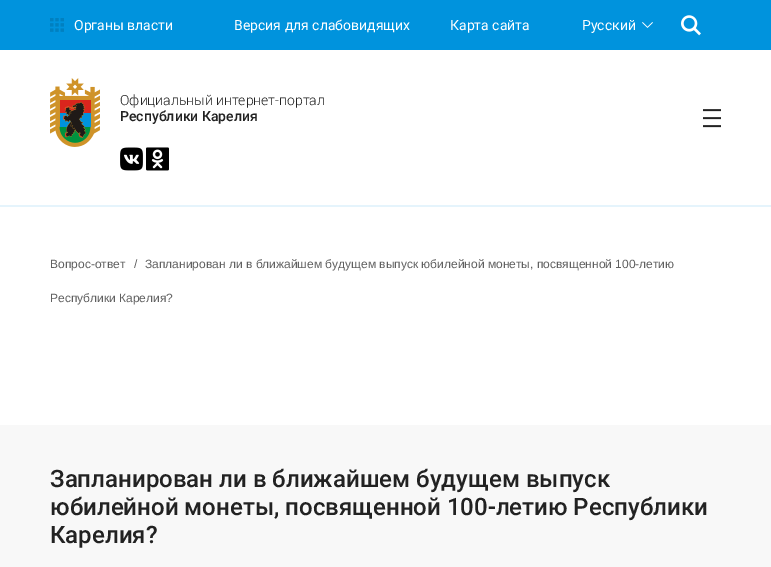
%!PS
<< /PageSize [771 567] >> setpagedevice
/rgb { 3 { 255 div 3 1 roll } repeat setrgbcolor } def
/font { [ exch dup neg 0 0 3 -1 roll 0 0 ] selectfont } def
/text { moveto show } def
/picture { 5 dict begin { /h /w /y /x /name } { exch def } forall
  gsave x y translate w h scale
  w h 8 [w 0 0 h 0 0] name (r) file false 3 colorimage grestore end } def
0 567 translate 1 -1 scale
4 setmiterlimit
255 255 255 rgb
0 0 771 567 rectfill
0 147 221 rgb
0 0 771 50 rectfill
(img_01.rgb) 50 18 14 14 picture
(img_02.rgb) 642 22 11 6 picture
(img_03.rgb) 681 15 20 21 picture
(img_04.rgb) 50 78 50 69 picture
(img_05.rgb) 120 147 23 24 picture
(img_06.rgb) 146 147 23 24 picture
(img_07.rgb) 703 109 18 19 picture
229 244 252 rgb
0 205 771 2 rectfill
248 248 248 rgb
0 425 771 142 rectfill
/Roboto-Regular 14 font
255 255 255 rgb
(Органы власти) 74 30 text
(Версия для слабовидящих) 234 30 text
(Карта сайта) 450 30 text
(Русский) 582 30 text
/Roboto-Light 14 font
34 34 34 rgb
(Официальный интернет-портал) 120 105 text
/Roboto-Medium 14 font
(Республики Карелия) 120 121 text
/LiberationSans-Regular 12 font
96 96 96 rgb
(Вопрос-ответ) 50 268 text
(/) 134 268 text
(Запланирован ли в ближайшем будущем выпуск юбилейной монеты, посвященной 100-летию) 145 268 text
(Республики Карелия?) 50 302 text
/Roboto-Medium 24 font
34 34 34 rgb
(Запланирован ли в ближайшем будущем выпуск) 50 487 text
(юбилейной монеты, посвященной 100-летию Республики) 50 515 text
(Карелия?) 50 543 text
showpage
